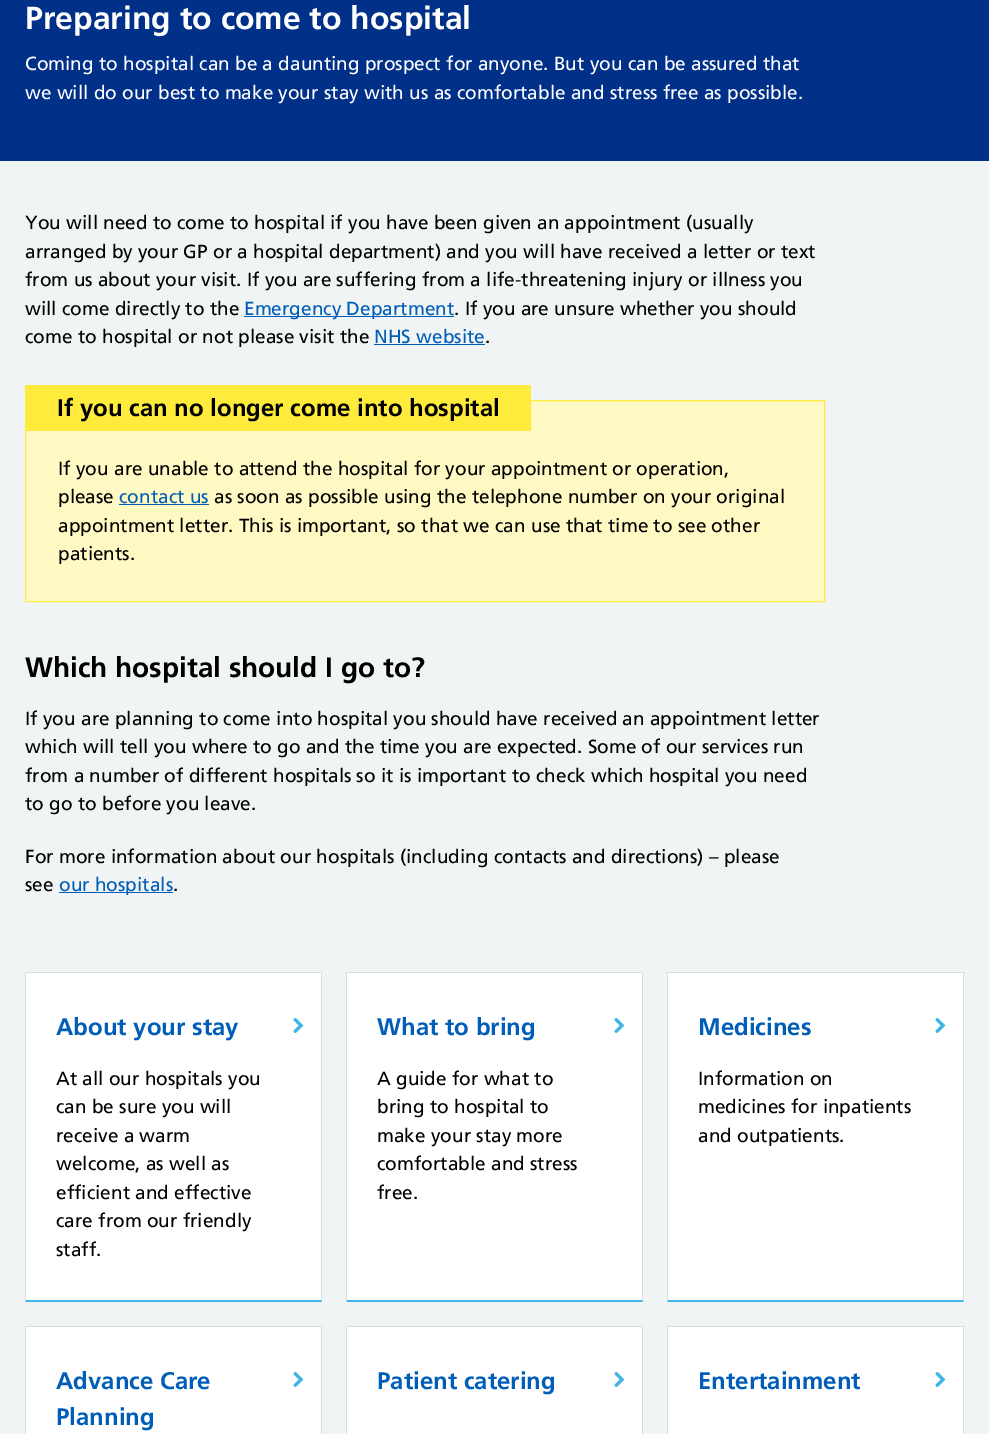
%!PS
<< /PageSize [989 1434] >> setpagedevice
/rgb { 3 { 255 div 3 1 roll } repeat setrgbcolor } def
/font { [ exch dup neg 0 0 3 -1 roll 0 0 ] selectfont } def
/text { moveto show } def
/picture { 5 dict begin { /h /w /y /x /name } { exch def } forall
  gsave x y translate w h scale
  w h 8 [w 0 0 h 0 0] name (r) file false 3 colorimage grestore end } def
0 1434 translate 1 -1 scale
4 setmiterlimit
0 48 135 rgb
0 0 989 1434 rectfill
240 244 245 rgb
0 161 989 1273 rectfill
0 94 184 rgb
244 316 210 1 rectfill
374 344 111 1 rectfill
255 249 196 rgb
25.5 400.5 moveto 799 0 rlineto 0 201 rlineto -799 0 rlineto closepath gsave fill grestore
255 235 59 rgb
stroke
25 385 506 46 rectfill
0 94 184 rgb
119 504 90 1 rectfill
59 892 114 1 rectfill
255 255 255 rgb
26 973 295 327 rectfill
216 221 224 rgb
25 972 297 1 rectfill
322 972 moveto 0 330 rlineto -1 -2 rlineto 0 -327 rlineto closepath fill
65 182 230 rgb
322 1302 moveto -297 0 rlineto 1 -2 rlineto 295 0 rlineto closepath fill
216 221 224 rgb
25 1302 moveto 0 -330 rlineto 1 1 rlineto 0 327 rlineto closepath fill
(img_01.rgb) 293 1018 11 15 picture
255 255 255 rgb
347 973 295 327 rectfill
216 221 224 rgb
346 972 297 1 rectfill
643 972 moveto 0 330 rlineto -1 -2 rlineto 0 -327 rlineto closepath fill
65 182 230 rgb
643 1302 moveto -297 0 rlineto 1 -2 rlineto 295 0 rlineto closepath fill
216 221 224 rgb
346 1302 moveto 0 -330 rlineto 1 1 rlineto 0 327 rlineto closepath fill
(img_01.rgb) 614 1018 11 15 picture
255 255 255 rgb
668 973 295 327 rectfill
216 221 224 rgb
667 972 297 1 rectfill
964 972 moveto 0 330 rlineto -1 -2 rlineto 0 -327 rlineto closepath fill
65 182 230 rgb
964 1302 moveto -297 0 rlineto 1 -2 rlineto 295 0 rlineto closepath fill
216 221 224 rgb
667 1302 moveto 0 -330 rlineto 1 1 rlineto 0 327 rlineto closepath fill
(img_01.rgb) 935 1018 11 15 picture
255 255 255 rgb
26 1327 295 107 rectfill
216 221 224 rgb
25 1326 297 1 rectfill
322 1326 moveto 0 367 rlineto -1 -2 rlineto 0 -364 rlineto closepath fill
25 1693 moveto 0 -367 rlineto 1 1 rlineto 0 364 rlineto closepath fill
(img_01.rgb) 293 1372 11 15 picture
255 255 255 rgb
347 1327 295 107 rectfill
216 221 224 rgb
346 1326 297 1 rectfill
643 1326 moveto 0 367 rlineto -1 -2 rlineto 0 -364 rlineto closepath fill
346 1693 moveto 0 -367 rlineto 1 1 rlineto 0 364 rlineto closepath fill
(img_01.rgb) 614 1372 11 15 picture
255 255 255 rgb
668 1327 295 107 rectfill
216 221 224 rgb
667 1326 297 1 rectfill
964 1326 moveto 0 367 rlineto -1 -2 rlineto 0 -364 rlineto closepath fill
667 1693 moveto 0 -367 rlineto 1 1 rlineto 0 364 rlineto closepath fill
(img_01.rgb) 935 1372 11 15 picture
/Frutiger-Bold 32 font
255 255 255 rgb
(Preparing to come to hospital) 25 29 text
/Frutiger-Regular 19 font
(Coming to hospital can be a daunting prospect for anyone. But you can be assured that) 25 70 text
(we will do our best to make your stay with us as comfortable and stress free as possible.) 25 99 text
0 0 0 rgb
(You will need to come to hospital if you have been given an appointment \(usually) 25 229 text
(arranged by your GP or a hospital department\) and you will have received a letter or text) 25 258 text
(from us about your visit. If you are suffering from a life-threatening injury or illness you) 25 286 text
(will come directly to the) 25 315 text
0 94 184 rgb
(Emergency Department) 244 315 text
0 0 0 rgb
(. If you are unsure whether you should) 454 315 text
(come to hospital or not please visit the) 25 343 text
0 94 184 rgb
(NHS website) 374 343 text
0 0 0 rgb
(.) 485 343 text
/Frutiger-Bold 24 font
(If you can no longer come into hospital) 57 416 text
/Frutiger-Regular 19 font
(If you are unable to attend the hospital for your appointment or operation,) 58 475 text
(please) 58 503 text
0 94 184 rgb
(contact us) 119 503 text
0 0 0 rgb
(as soon as possible using the telephone number on your original) 214 503 text
(appointment letter. This is important, so that we can use that time to see other) 58 532 text
(patients.) 58 560 text
/Frutiger-Bold 28 font
(Which hospital should I go to?) 25 677 text
/Frutiger-Regular 19 font
(If you are planning to come into hospital you should have received an appointment letter) 25 725 text
(which will tell you where to go and the time you are expected. Some of our services run) 25 753 text
(from a number of different hospitals so it is important to check which hospital you need) 25 782 text
(to go to before you leave.) 25 810 text
(For more information about our hospitals \(including contacts and directions\) – please) 25 863 text
(see) 25 891 text
0 94 184 rgb
(our hospitals) 59 891 text
0 0 0 rgb
(.) 173 891 text
/Frutiger-Bold 24 font
0 94 184 rgb
(About your stay) 56 1035 text
/Frutiger-Regular 19 font
0 0 0 rgb
(At all our hospitals you) 56 1085 text
(can be sure you will) 56 1113 text
(receive a warm) 56 1142 text
(welcome, as well as) 56 1170 text
(efficient and effective) 56 1199 text
(care from our friendly) 56 1227 text
(staff.) 56 1256 text
/Frutiger-Bold 24 font
0 94 184 rgb
(What to bring) 377 1035 text
/Frutiger-Regular 19 font
0 0 0 rgb
(A guide for what to) 377 1085 text
(bring to hospital to) 377 1113 text
(make your stay more) 377 1142 text
(comfortable and stress) 377 1170 text
(free.) 377 1199 text
/Frutiger-Bold 24 font
0 94 184 rgb
(Medicines) 698 1035 text
/Frutiger-Regular 19 font
0 0 0 rgb
(Information on) 698 1085 text
(medicines for inpatients) 698 1113 text
(and outpatients.) 698 1142 text
/Frutiger-Bold 24 font
0 94 184 rgb
(Advance Care) 56 1389 text
(Planning) 56 1425 text
(Patient catering) 377 1389 text
(Entertainment) 698 1389 text
showpage
